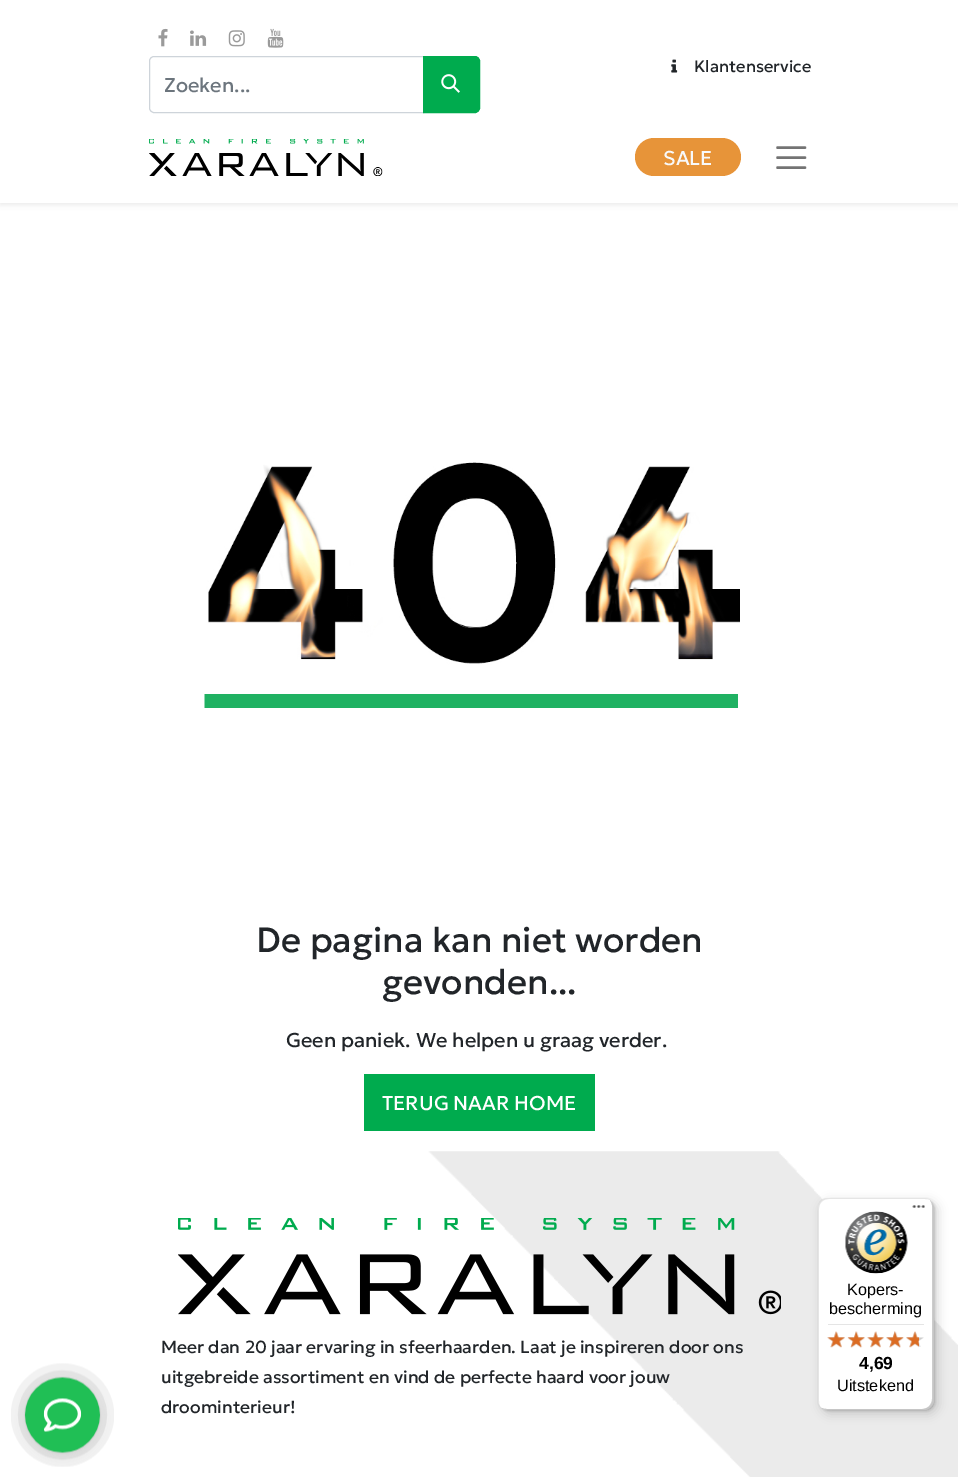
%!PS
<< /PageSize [958 1477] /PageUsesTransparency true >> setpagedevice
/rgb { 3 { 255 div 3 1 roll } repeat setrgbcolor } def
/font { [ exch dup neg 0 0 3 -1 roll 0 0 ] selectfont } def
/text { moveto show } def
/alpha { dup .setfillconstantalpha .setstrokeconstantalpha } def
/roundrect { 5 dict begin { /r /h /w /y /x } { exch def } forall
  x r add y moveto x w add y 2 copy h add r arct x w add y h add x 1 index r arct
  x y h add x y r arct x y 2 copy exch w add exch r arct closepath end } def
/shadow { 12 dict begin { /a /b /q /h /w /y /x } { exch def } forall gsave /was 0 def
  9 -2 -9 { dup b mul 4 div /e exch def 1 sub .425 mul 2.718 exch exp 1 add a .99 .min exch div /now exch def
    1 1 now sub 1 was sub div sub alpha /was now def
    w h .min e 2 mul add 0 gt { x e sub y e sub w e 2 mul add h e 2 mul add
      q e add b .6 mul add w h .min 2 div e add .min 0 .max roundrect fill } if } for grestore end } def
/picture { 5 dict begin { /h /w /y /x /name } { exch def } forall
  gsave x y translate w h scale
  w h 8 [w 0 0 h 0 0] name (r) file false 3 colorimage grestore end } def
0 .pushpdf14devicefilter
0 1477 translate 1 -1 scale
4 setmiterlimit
255 255 255 rgb
0 0 958 1477 rectfill
0 0 0 rgb
0 3 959 202 0 2.5 0.07 shadow
255 255 255 rgb
0 0 958 203 rectfill
(img_01.rgb) 671 59 7 14 picture
(img_02.rgb) 158 28 10 19 picture
(img_03.rgb) 190 30 17 16 picture
(img_04.rgb) 228 30 17 17 picture
(img_05.rgb) 267 28 17 20 picture
206 212 218 rgb
154 56.5 moveto 269.5 0 rlineto 0 56 rlineto -269.5 0 rlineto -2.5 0 -4.5 -2 -4.5 -4.5 rcurveto 0 -47 rlineto 0 -2.5 2 -4.5 4.5 -4.5 rcurveto closepath stroke
0 171 78 rgb
423.5 56.5 moveto 51.5 0 rlineto 2.5 0 4.5 2 4.5 4.5 rcurveto 0 47 rlineto 0 2.5 -2 4.5 -4.5 4.5 rcurveto -51.5 0 rlineto closepath gsave fill grestore
stroke
(img_06.rgb) 441 74 19 19 picture
(img_07.rgb) 149 139 234 37 picture
231 148 57 rgb
635 138 106 38 19 roundrect fill
115 115 115 rgb
2.5 setlinewidth
1 setlinecap
777.5 147.5 moveto 27.5 0 rlineto 777.5 157.5 moveto 27.5 0 rlineto 777.5 167.5 moveto 27.5 0 rlineto stroke
(img_08.rgb) 204 462 536 246 picture
0 171 78 rgb
364 1074 231 57 rectfill
(img_09.rgb) 428 1151 530 326 picture
(img_10.rgb) 178 1218 603 97 picture
0 0 0 rgb
821 1201 117 213 10 5 0.15 shadow
819 1199 116 212 10 1 0.15 shadow
255 255 255 rgb
818 1198 116 212 10 roundrect fill
0.1 alpha
0 0 0 rgb
829 1199 moveto 96 0 rlineto 2 0 4 0 5 1 rcurveto -1 -1 -4 -2 -6 -2 rcurveto -96 0 rlineto -6 0 -10 4 -10 10 rcurveto 0 192 rlineto 0 2 1 5 2 6 rcurveto -1 -1 -1 -3 -1 -5 rcurveto 0 -192 rlineto 0 -6 4 -10 10 -10 rcurveto closepath fill
0.2 alpha
822 1408 moveto 2 1 4 2 6 2 rcurveto 96 0 rlineto 6 0 10 -4 10 -10 rcurveto 0 -192 rlineto 0 -3 -2 -6 -4 -8 rcurveto 1 2 2 4 2 6 rcurveto 0 193 rlineto 0 5 -4 10 -10 10 rcurveto -96 0 rlineto -1 0 -3 0 -4 -1 rcurveto closepath fill
50 50 50 rgb
822 1408 moveto 1 1 4 2 6 2 rcurveto 96 0 rlineto 6 0 10 -4 10 -10 rcurveto 0 -192 rlineto 0 -2 -1 -5 -2 -6 rcurveto 1 1 1 3 1 5 rcurveto 0 192 rlineto 0 6 -4 10 -10 10 rcurveto -96 0 rlineto -2 0 -4 0 -5 -1 rcurveto closepath fill
0.3 alpha
255 255 255 rgb
822 1408 moveto 1 1 4 2 6 2 rcurveto 96 0 rlineto 6 0 10 -4 10 -10 rcurveto 0 -192 rlineto 0 -2 -1 -5 -2 -6 rcurveto 1 1 1 3 1 5 rcurveto 0 192 rlineto 0 6 -4 10 -10 10 rcurveto -96 0 rlineto -2 0 -4 0 -5 -1 rcurveto closepath fill
1 alpha
(img_11.rgb) 912 1205 13 3 picture
(img_12.rgb) 845 1211 63 63 picture
229 229 229 rgb
828 1324 96 1 rectfill
(img_13.rgb) 827 1332 18 15 picture
(img_14.rgb) 848 1331 17 17 picture
(img_15.rgb) 867 1332 17 15 picture
(img_16.rgb) 886 1331 18 17 picture
(img_17.rgb) 906 1332 18 15 picture
(img_18.rgb) 827 1331 18 17 picture
(img_19.rgb) 847 1331 18 17 picture
(img_20.rgb) 867 1331 17 17 picture
(img_21.rgb) 886 1331 18 17 picture
(img_22.rgb) 906 1331 13 17 picture
(img_23.rgb) 11 1363 103 104 picture
/Geologica-Regular 16.5 font
33 37 41 rgb
(Klantenservice) 694 72 text
/Geologica-Regular 20 font
108 117 125 rgb
(Zoeken...) 164 92 text
248 249 250 rgb
(SALE) 663 165 text
/Geologica-Regular 35.1 font
33 37 41 rgb
(De pagina kan niet worden) 256 952 text
(gevonden...) 382 994 text
/Geologica-Regular 20 font
(Geen paniek. We helpen u graag verder.) 286 1047 text
255 255 255 rgb
(TERUG NAAR HOME) 382 1110 text
/Geologica-Regular 17.5 font
33 37 41 rgb
(Meer dan 20 jaar ervaring in sfeerhaarden. Laat je inspireren door ons) 161 1353 text
(uitgebreide assortiment en vind de perfecte haard voor jouw) 161 1383 text
(droominterieur!) 161 1413 text
/LiberationSans-Regular 16.25 font
0 0 0 rgb
(Kopers-) 847 1295 text
(bescherming) 829 1314 text
/LiberationSans-Bold 17.5 font
(4,69) 859 1369 text
/LiberationSans-Regular 16.25 font
(Uitstekend) 837 1391 text
.poppdf14devicefilter showpage
